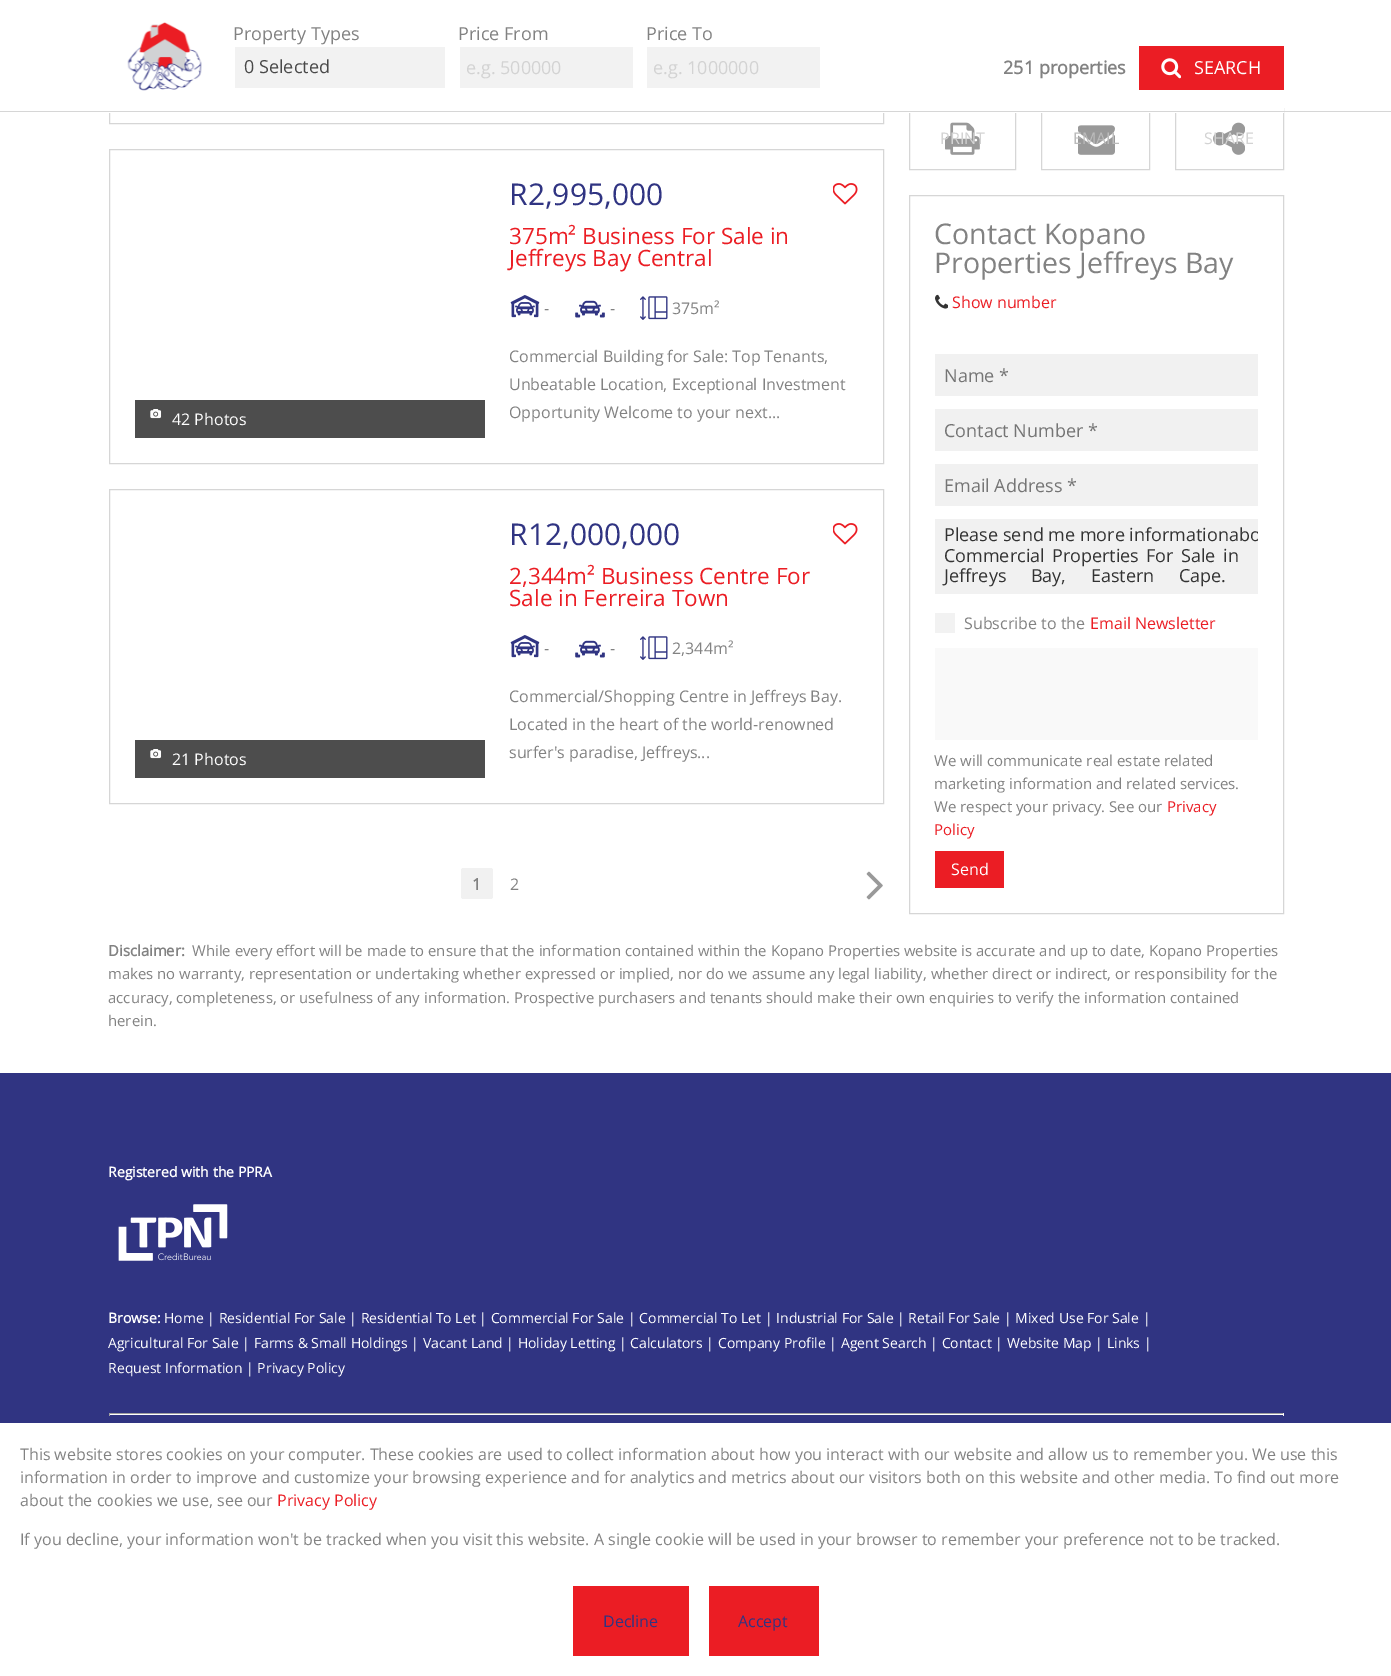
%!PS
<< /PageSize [1391 1676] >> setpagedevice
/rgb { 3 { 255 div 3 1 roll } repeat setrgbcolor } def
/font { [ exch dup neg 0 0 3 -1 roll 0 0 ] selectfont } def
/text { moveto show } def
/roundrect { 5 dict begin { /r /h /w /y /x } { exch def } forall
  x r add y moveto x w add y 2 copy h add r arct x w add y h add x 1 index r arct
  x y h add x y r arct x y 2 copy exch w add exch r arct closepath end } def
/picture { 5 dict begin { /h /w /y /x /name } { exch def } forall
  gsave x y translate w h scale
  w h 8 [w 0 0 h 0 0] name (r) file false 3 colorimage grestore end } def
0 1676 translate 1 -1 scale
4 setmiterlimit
255 255 255 rgb
0 0 1391 1676 rectfill
214 214 214 rgb
109.5 -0.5 774 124 rectstroke
909.5 108.5 106 61 rectstroke
1041.5 108.5 108 61 rectstroke
1175.5 108.5 108 61 rectstroke
255 255 255 rgb
109 0 1175 113 rectfill
(img_01.rgb) 127 22 75 69 picture
242 242 242 rgb
235 47 210 41 rectfill
460 47 173 41 rectfill
647 47 173 41 rectfill
235 29 36 rgb
1139 46 145 44 rectfill
(img_02.rgb) 1161 58 20 21 picture
214 214 214 rgb
0 111 1391 1 rectfill
109.5 149.5 774 314 rectstroke
77 77 77 rgb
135 400 350 38 rectfill
(img_03.rgb) 150 409 12 10 picture
(img_04.rgb) 833 183 25 22 picture
(img_05.rgb) 510 295 30 23 picture
(img_06.rgb) 575 300 30 18 picture
(img_07.rgb) 640 296 28 24 picture
214 214 214 rgb
109.5 489.5 774 314 rectstroke
77 77 77 rgb
135 740 350 38 rectfill
(img_03.rgb) 150 749 12 10 picture
(img_04.rgb) 833 523 25 22 picture
(img_05.rgb) 510 635 30 23 picture
(img_06.rgb) 575 640 30 18 picture
(img_07.rgb) 640 636 28 24 picture
241 241 241 rgb
461 868 32 31 2.5 roundrect fill
(img_08.rgb) 866 871 17 29 picture
(img_09.rgb) 945 122 35 33 picture
(img_10.rgb) 1078 125 37 30 picture
(img_11.rgb) 1213 122 32 33 picture
214 214 214 rgb
909.5 195.5 374 718 rectstroke
(img_12.rgb) 935 294 13 15 picture
241 241 241 rgb
935 354 323 42 rectfill
935 409 323 42 rectfill
935 464 323 42 rectfill
935 519 323 75 rectfill
242 242 242 rgb
935 613 20 20 rectfill
249 249 249 rgb
935 648 323 92 rectfill
235 29 36 rgb
935 851 69 37 rectfill
48 52 130 rgb
0 1073 1391 350 rectfill
(img_13.rgb) 118 1204 110 57 picture
159 159 159 rgb
109 1413 1175 1 rectfill
238 238 238 rgb
1283 1413 1 3 rectfill
255 255 255 rgb
109 1414 1175 1 rectfill
159 159 159 rgb
109 1413 1 3 rectfill
235 29 36 rgb
573 1586 116 70 rectfill
709 1586 110 70 rectfill
/OpenSans-Regular 18 font
130 130 130 rgb
(Property Types) 233 40 text
73 73 73 rgb
(0 Selected) 244 73 text
130 130 130 rgb
(Price From) 458 40 text
211 211 211 rgb
(e.g. 500000) 466 74 text
130 130 130 rgb
(Price To) 646 40 text
211 211 211 rgb
(e.g. 1000000) 653 74 text
/OpenSans-Bold 18 font
130 130 130 rgb
(251 properties) 1003 74 text
/OpenSans-Regular 18 font
255 255 255 rgb
(SEARCH) 1194 74 text
/OpenSans-Regular 16 font
(42 Photos) 172 425 text
/OpenSans-Regular 30 font
48 52 130 rgb
(R2,995,000) 509 205 text
/OpenSans-Regular 22.5 font
235 29 36 rgb
(375m² Business For Sale in) 509 244 text
(Jeffreys Bay Central) 509 266 text
/OpenSans-Regular 16 font
130 130 130 rgb
(-) 544 314 text
(-) 610 314 text
(375m²) 672 314 text
(Commercial Building for Sale: Top Tenants,) 509 362 text
(Unbeatable Location, Exceptional Investment) 509 390 text
(Opportunity Welcome to your next...) 509 418 text
255 255 255 rgb
(21 Photos) 172 765 text
/OpenSans-Regular 30 font
48 52 130 rgb
(R12,000,000) 509 545 text
/OpenSans-Regular 22.5 font
235 29 36 rgb
(2,344m² Business Centre For) 509 584 text
(Sale in Ferreira Town) 509 606 text
/OpenSans-Regular 16 font
130 130 130 rgb
(-) 544 654 text
(-) 610 654 text
(2,344m²) 672 654 text
(Commercial/Shopping Centre in Jeffreys Bay.) 509 702 text
(Located in the heart of the world-renowned) 509 730 text
(surfer's paradise, Jeffreys...) 509 758 text
/OpenSans-Bold 16 font
(1) 472 890 text
/OpenSans-Regular 16 font
(2) 510 890 text
211 211 211 rgb
(PRINT) 940 144 text
187 187 187 rgb
(EMAIL) 1073 144 text
211 211 211 rgb
(SHARE) 1204 144 text
/OpenSans-Regular 28.5 font
130 130 130 rgb
(Contact Kopano) 934 244 text
(Properties Jeffreys Bay) 934 273 text
/OpenSans-Regular 16 font
235 29 36 rgb
(Show number) 952 308 text
/OpenSans-Regular 18 font
117 117 117 rgb
(Name *) 944 382 text
(Contact Number *) 944 437 text
(Email Address *) 944 492 text
51 51 51 rgb
(Please send me more information) 944 541 text
gsave
935 519 323 75 rectclip
(abo) 1229 541 text
grestore
944 562 moveto 2.5 0 32 (Commercial Properties For Sale) widthshow
(in) 1223 562 text
944 582 moveto 20 0 32 (Jeffreys Bay, Eastern Cape.) widthshow
/OpenSans-Regular 16 font
130 130 130 rgb
(Subscribe to the) 964 629 text
235 29 36 rgb
(Email Newsletter) 1090 629 text
/OpenSans-Regular 15 font
130 130 130 rgb
(We will communicate real estate related) 934 766 text
(marketing information and related services.) 934 789 text
(We respect your privacy. See our) 934 812 text
235 29 36 rgb
(Privacy) 1167 812 text
(Policy) 934 835 text
/OpenSans-Regular 16 font
255 255 255 rgb
(Send) 951 875 text
/OpenSans-Bold 14.88 font
130 130 130 rgb
(Disclaimer:) 108 956 text
/OpenSans-Regular 14.88 font
(While every effort will be made to ensure that the information contained within the Kopano Properties website is accurate and up to date, Kopano Properties) 192 956 text
(makes no warranty, representation or undertaking whether expressed or implied, nor do we assume any legal liability, whether direct or indirect, or responsibility for the) 108 979 text
(accuracy, completeness, or usefulness of any information. Prospective purchasers and tenants should make their own enquiries to verify the information contained) 108 1003 text
(herein.) 108 1026 text
/OpenSans-Bold 14 font
255 255 255 rgb
(Registered with the PPRA) 108 1177 text
(Browse:) 108 1323 text
/OpenSans-Regular 14 font
(Home | Residential For Sale | Residential To Let | Commercial For Sale | Commercial To Let | Industrial For Sale | Retail For Sale | Mixed Use For Sale |) 164 1323 text
(Agricultural For Sale | Farms & Small Holdings | Vacant Land | Holiday Letting | Calculators | Company Profile | Agent Search | Contact | Website Map | Links |) 108 1348 text
(Request Information | Privacy Policy) 108 1373 text
/OpenSans-Regular 16 font
130 130 130 rgb
(This website stores cookies on your computer. These cookies are used to collect information about how you interact with our website and allow us to remember you. We use this) 20 1460 text
(information in order to improve and customize your browsing experience and for analytics and metrics about our visitors both on this website and other media. To find out more) 20 1483 text
(about the cookies we use, see our) 20 1506 text
235 29 36 rgb
(Privacy Policy) 277 1506 text
130 130 130 rgb
(If you decline, your information won't be tracked when you visit this website. A single cookie will be used in your browser to remember your preference not to be tracked.) 20 1545 text
48 52 130 rgb
(Decline) 603 1627 text
(Accept) 738 1627 text
showpage
